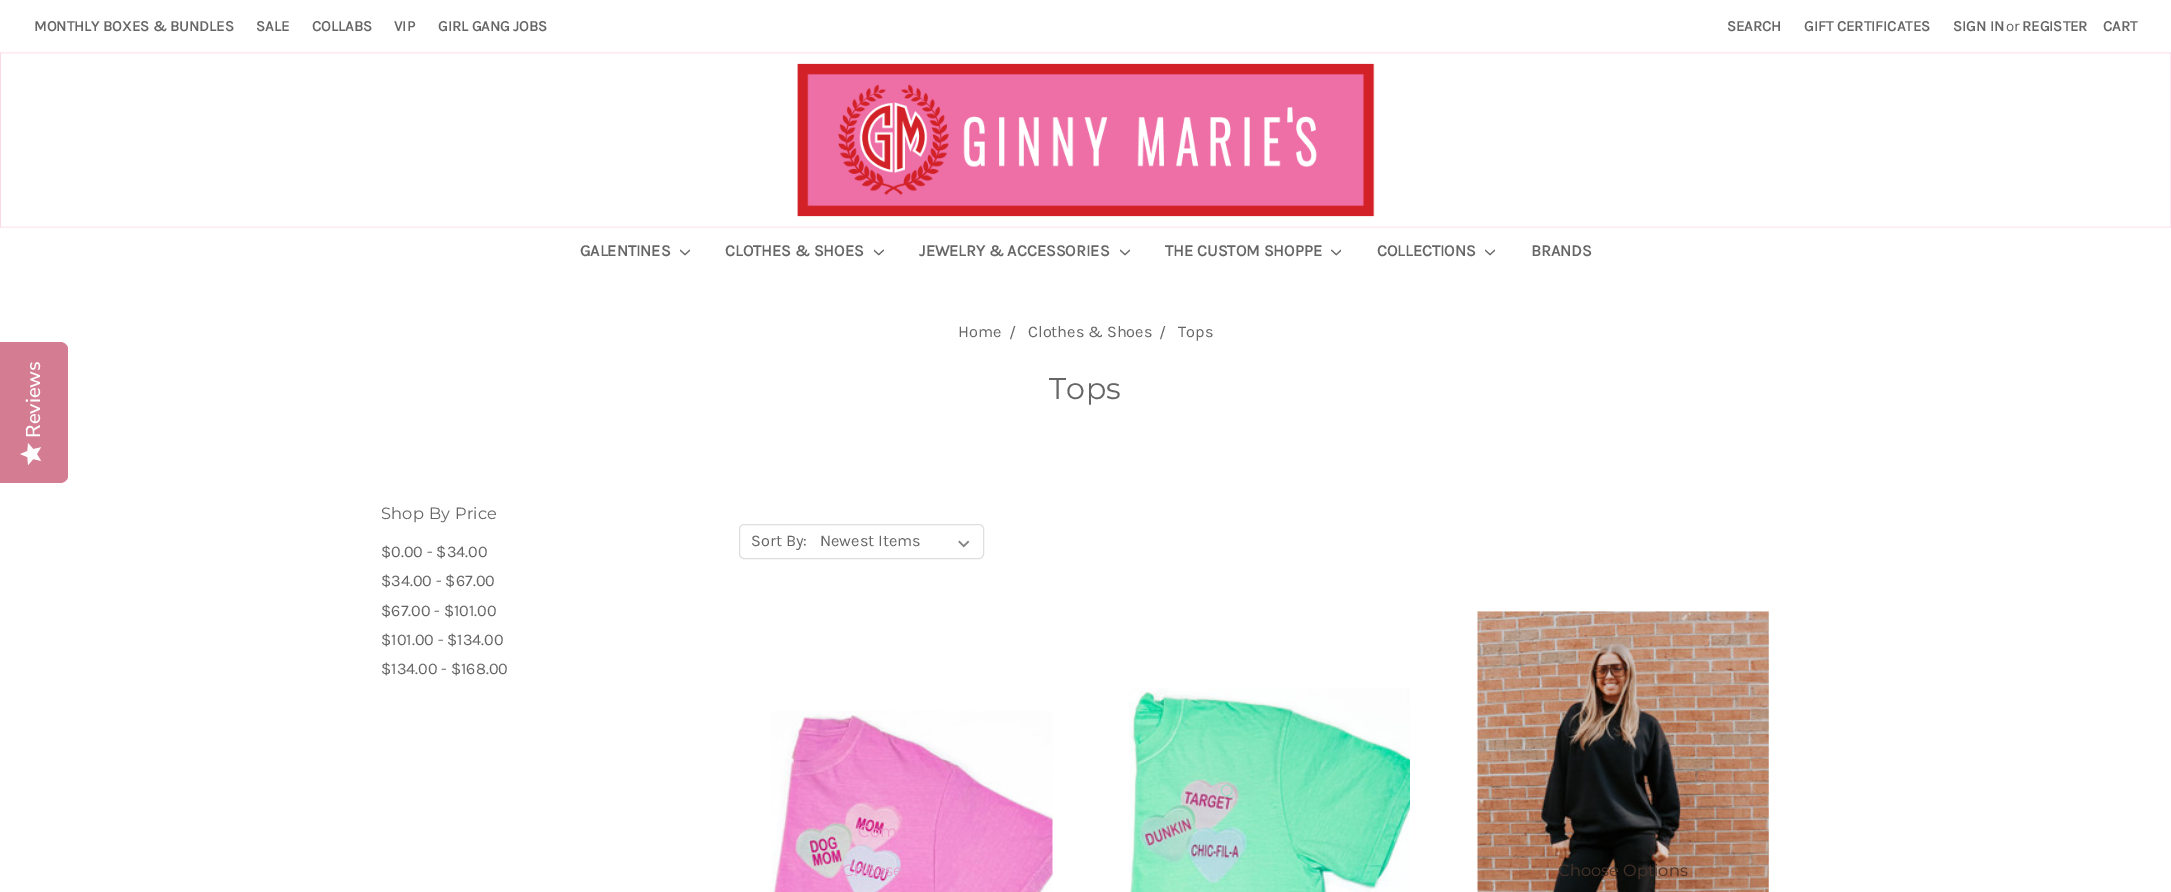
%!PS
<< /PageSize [2171 892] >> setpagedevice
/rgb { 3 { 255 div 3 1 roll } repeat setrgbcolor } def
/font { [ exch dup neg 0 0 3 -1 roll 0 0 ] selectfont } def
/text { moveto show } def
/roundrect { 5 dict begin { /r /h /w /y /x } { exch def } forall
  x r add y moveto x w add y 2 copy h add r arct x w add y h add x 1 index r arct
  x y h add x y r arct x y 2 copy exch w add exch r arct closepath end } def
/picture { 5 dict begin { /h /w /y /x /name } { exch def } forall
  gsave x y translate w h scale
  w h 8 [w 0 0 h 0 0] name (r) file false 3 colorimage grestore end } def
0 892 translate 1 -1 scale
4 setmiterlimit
255 255 255 rgb
0 0 2171 892 rectfill
(img_01.rgb) 0 52 2171 176 picture
(img_02.rgb) 680 249 10 7 picture
(img_03.rgb) 874 249 10 7 picture
(img_02.rgb) 1120 249 10 7 picture
(img_04.rgb) 1331 249 10 7 picture
(img_02.rgb) 1485 249 10 7 picture
212 124 145 rgb
0 483 moveto 0 -141 rlineto 60 0 rlineto 4 0 8 3 8 7 rcurveto 0 127 rlineto 0 4 -4 7 -8 7 rcurveto closepath fill
(img_05.rgb) 20 443 22 22 picture
223 223 223 rgb
739.5 524.5 244 34 4.5 roundrect stroke
(img_06.rgb) 958 540 12 8 picture
(img_07.rgb) 1129 688 281 204 picture
(img_08.rgb) 771 711 282 181 picture
(img_09.rgb) 1477 611 292 281 picture
/Karla-Bold 15 font
102 102 102 rgb
(MONTHLY BOXES & BUNDLES) 34 31 text
(SALE) 256 31 text
(COLLABS) 312 31 text
(VIP) 394 31 text
(GIRL GANG JOBS) 438 31 text
(SEARCH) 1727 31 text
(GIFT CERTIFICATES) 1804 31 text
(SIGN IN) 1953 31 text
/Karla-Regular 15 font
(or) 2006 31 text
/Karla-Bold 15 font
(REGISTER) 2022 31 text
(CART) 2103 31 text
/Karla-Bold 16.25 font
(GALENTINES) 580 256 text
(CLOTHES & SHOES) 725 256 text
(JEWELRY & ACCESSORIES) 919 256 text
(THE CUSTOM SHOPPE) 1165 256 text
(COLLECTIONS) 1377 256 text
(BRANDS) 1531 256 text
/NunitoSans-ExtraLight 20 font
254 254 254 rgb
gsave 40 438 translate -90 rotate 0 0 moveto (Reviews) show grestore
/Karla-Regular 16.25 font
102 102 102 rgb
(Home) 958 337 text
(/) 1009 338 text
(Clothes & Shoes) 1028 337 text
(/) 1159 338 text
(Tops) 1178 337 text
/Montserrat-Thin 30 font
1049 399 moveto 0.25 0 (Tops) ashow
/Montserrat-Thin 16.25 font
381 519 moveto 0.25 0 (Shop By Price) ashow
/Karla-Regular 16.25 font
($0.00 - $34.00) 381 557 text
($34.00 - $67.00) 381 586 text
($67.00 - $101.00) 381 616 text
($101.00 - $134.00) 381 645 text
($134.00 - $168.00) 381 674 text
(Sort By:) 751 546 text
(Newest Items) 820 546 text
/Montserrat-Thin 16.25 font
149 222 192 rgb
(Q) 1220 796 text
239 155 206 rgb
(Com) 858 837 text
231 158 210 rgb
(Choose) 842 876 text
71 52 42 rgb
(Choose Options) 1558 876 text
showpage
